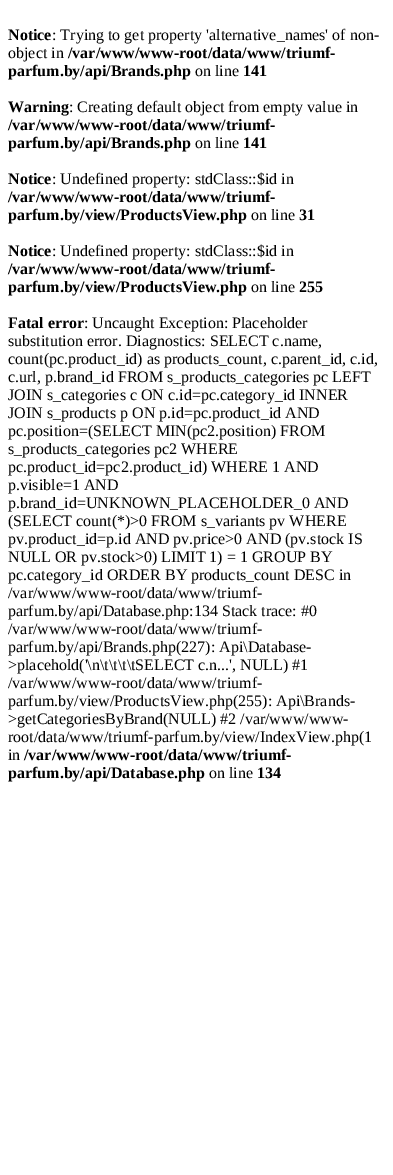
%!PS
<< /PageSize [393 1175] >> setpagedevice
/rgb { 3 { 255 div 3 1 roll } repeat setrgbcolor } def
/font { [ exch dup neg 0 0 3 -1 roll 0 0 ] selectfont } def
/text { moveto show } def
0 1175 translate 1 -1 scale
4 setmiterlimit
255 255 255 rgb
0 0 393 1175 rectfill
/LiberationSerif-Bold 16 font
0 0 0 rgb
(Notice) 8 40 text
/LiberationSerif-Regular 16 font
(: Trying to get property 'alternative_names' of non-) 52 40 text
(object in) 8 58 text
/LiberationSerif-Bold 16 font
(/var/www/www-root/data/www/triumf-) 68 58 text
(parfum.by/api/Brands.php) 8 76 text
/LiberationSerif-Regular 16 font
(on line) 195 76 text
/LiberationSerif-Bold 16 font
(141) 243 76 text
(Warning) 8 112 text
/LiberationSerif-Regular 16 font
(: Creating default object from empty value in) 69 112 text
/LiberationSerif-Bold 16 font
(/var/www/www-root/data/www/triumf-) 8 130 text
(parfum.by/api/Brands.php) 8 148 text
/LiberationSerif-Regular 16 font
(on line) 195 148 text
/LiberationSerif-Bold 16 font
(141) 243 148 text
(Notice) 8 184 text
/LiberationSerif-Regular 16 font
(: Undefined property: stdClass::$id in) 52 184 text
/LiberationSerif-Bold 16 font
(/var/www/www-root/data/www/triumf-) 8 202 text
(parfum.by/view/ProductsView.php) 8 220 text
/LiberationSerif-Regular 16 font
(on line) 251 220 text
/LiberationSerif-Bold 16 font
(31) 299 220 text
(Notice) 8 256 text
/LiberationSerif-Regular 16 font
(: Undefined property: stdClass::$id in) 52 256 text
/LiberationSerif-Bold 16 font
(/var/www/www-root/data/www/triumf-) 8 274 text
(parfum.by/view/ProductsView.php) 8 292 text
/LiberationSerif-Regular 16 font
(on line) 251 292 text
/LiberationSerif-Bold 16 font
(255) 299 292 text
(Fatal error) 8 328 text
/LiberationSerif-Regular 16 font
(: Uncaught Exception: Placeholder) 84 328 text
(substitution error. Diagnostics: SELECT c.name,) 8 346 text
(count\(pc.product_id\) as products_count, c.parent_id, c.id,) 8 364 text
(c.url, p.brand_id FROM s_products_categories pc LEFT) 8 382 text
(JOIN s_categories c ON c.id=pc.category_id INNER) 8 400 text
(JOIN s_products p ON p.id=pc.product_id AND) 8 418 text
(pc.position=\(SELECT MIN\(pc2.position\) FROM) 8 436 text
(s_products_categories pc2 WHERE) 8 454 text
(pc.product_id=pc2.product_id\) WHERE 1 AND) 8 472 text
(p.visible=1 AND) 8 490 text
(p.brand_id=UNKNOWN_PLACEHOLDER_0 AND) 8 508 text
(\(SELECT count\(*\)>0 FROM s_variants pv WHERE) 8 526 text
(pv.product_id=p.id AND pv.price>0 AND \(pv.stock IS) 8 544 text
(NULL OR pv.stock>0\) LIMIT 1\) = 1 GROUP BY) 8 562 text
(pc.category_id ORDER BY products_count DESC in) 8 580 text
(/var/www/www-root/data/www/triumf-) 8 598 text
(parfum.by/api/Database.php:134 Stack trace: #0) 8 616 text
(/var/www/www-root/data/www/triumf-) 8 634 text
(parfum.by/api/Brands.php\(227\): Api\\Database-) 8 652 text
(>placehold\('\\n\\t\\t\\t\\tSELECT c.n...', NULL\) #1) 8 670 text
(/var/www/www-root/data/www/triumf-) 8 688 text
(parfum.by/view/ProductsView.php\(255\): Api\\Brands-) 8 706 text
(>getCategoriesByBrand\(NULL\) #2 /var/www/www-) 8 724 text
(root/data/www/triumf-parfum.by/view/IndexView.php\(1) 8 742 text
(in) 8 760 text
/LiberationSerif-Bold 16 font
(/var/www/www-root/data/www/triumf-) 24 760 text
(parfum.by/api/Database.php) 8 778 text
/LiberationSerif-Regular 16 font
(on line) 209 778 text
/LiberationSerif-Bold 16 font
(134) 257 778 text
showpage
